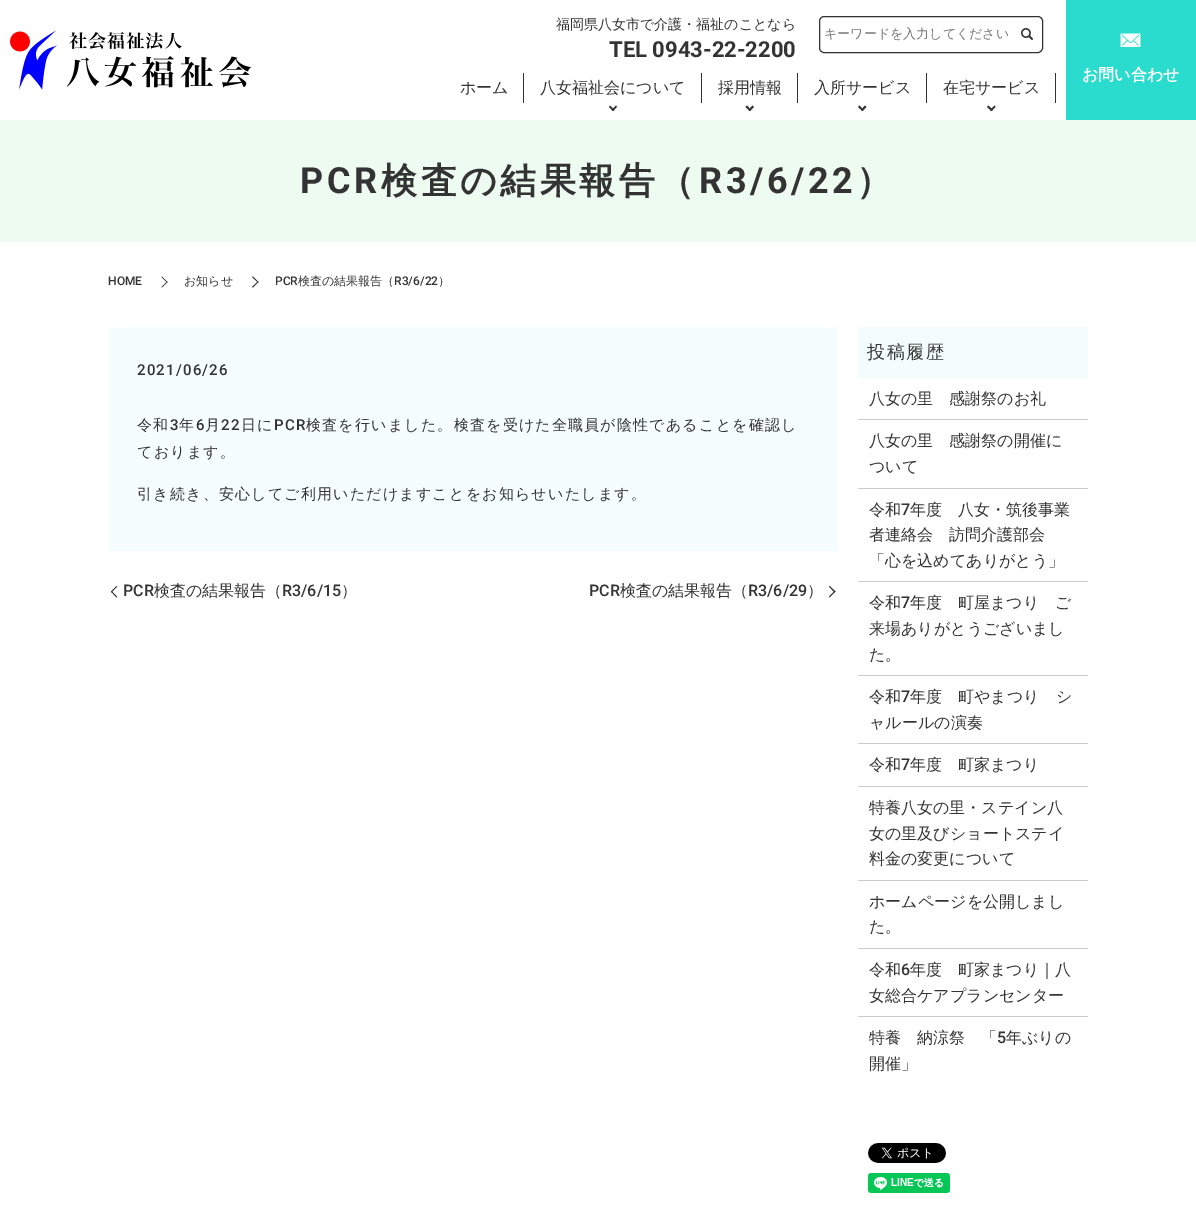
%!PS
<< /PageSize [1196 1207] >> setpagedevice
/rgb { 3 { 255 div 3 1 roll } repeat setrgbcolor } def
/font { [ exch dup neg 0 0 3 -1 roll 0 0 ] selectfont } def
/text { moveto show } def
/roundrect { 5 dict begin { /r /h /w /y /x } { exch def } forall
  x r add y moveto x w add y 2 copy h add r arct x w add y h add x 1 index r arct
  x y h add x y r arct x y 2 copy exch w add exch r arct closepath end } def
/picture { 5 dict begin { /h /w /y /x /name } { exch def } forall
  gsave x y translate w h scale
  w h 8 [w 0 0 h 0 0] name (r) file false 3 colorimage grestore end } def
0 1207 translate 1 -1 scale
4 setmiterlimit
255 255 255 rgb
0 0 1196 1207 rectfill
(img_01.rgb) 10 30 241 60 picture
51 51 51 rgb
819.5 16.5 223 36 4.5 roundrect stroke
(img_02.rgb) 1021 28 12 12 picture
523 73 1 30 rectfill
701 73 1 30 rectfill
617 107 moveto -4 4 rlineto -1.5 -1 rlineto 4.5 -4.5 rlineto closepath fill
614.5 110 moveto -1.5 1 rlineto -4 -4 rlineto 1 -1.5 rlineto closepath fill
797 73 1 30 rectfill
754 107 moveto -4 4 rlineto -1.5 -1 rlineto 4 -4.5 rlineto closepath fill
751 110 moveto -1 1 rlineto -4.5 -4 rlineto 1.5 -1.5 rlineto closepath fill
926 73 1 30 rectfill
866.5 107 moveto -4 4 rlineto -1.5 -1 rlineto 4 -4.5 rlineto closepath fill
863.5 110 moveto -1 1 rlineto -4.5 -4 rlineto 1.5 -1.5 rlineto closepath fill
1055 73 1 30 rectfill
995.5 107 moveto -4 4 rlineto -1.5 -1 rlineto 4.5 -4.5 rlineto closepath fill
993 110 moveto -1.5 1 rlineto -4.5 -4 rlineto 1.5 -1.5 rlineto closepath fill
41 220 205 rgb
1066 0 130 120 rectfill
(img_03.rgb) 1120 33 21 14 picture
237 251 241 rgb
0 120 1196 122 rectfill
51 51 51 rgb
162 276.5 moveto 5.5 5.5 rlineto -0.5 0.5 rlineto -5.5 -5.5 rlineto closepath fill
167 281.5 moveto 0.5 0.5 rlineto -5.5 5.5 rlineto -0.5 -0.5 rlineto closepath fill
253 276.5 moveto 5.5 5.5 rlineto -0.5 0.5 rlineto -6 -5.5 rlineto closepath fill
258 281.5 moveto 0.5 0.5 rlineto -5.5 5.5 rlineto -1 -0.5 rlineto closepath fill
245 254 253 rgb
108 327 730 224 rectfill
51 51 51 rgb
111 591.5 moveto 5.5 -5.5 rlineto 0.5 0.5 rlineto -5.5 6 rlineto closepath fill
116.5 597.5 moveto -5.5 -6 rlineto 0.5 -0.5 rlineto 5.5 5.5 rlineto closepath fill
829.5 586 moveto 6 5.5 rlineto -1 1 rlineto -5.5 -6 rlineto closepath fill
835.5 591.5 moveto -6 6 rlineto -0.5 -1 rlineto 5.5 -5.5 rlineto closepath fill
244 253 253 rgb
858 327 230 51 rectfill
204 204 204 rgb
858 419 230 1 rectfill
858 488 230 1 rectfill
858 581 230 1 rectfill
858 675 230 1 rectfill
858 743 230 1 rectfill
858 786 230 1 rectfill
858 880 230 1 rectfill
858 948 230 1 rectfill
858 1016 230 1 rectfill
(img_04.rgb) 868 1143 78 20 picture
(img_05.rgb) 868 1173 82 20 picture
/WenQuanYiZenHei-Medium 14 font
51 51 51 rgb
(福岡県八女市で介護・福祉のことなら) 556 29 text
/Roboto-Bold 22 font
(TEL 0943-22-2200) 609 57 text
/WenQuanYiZenHei-Medium 13 font
117 117 117 rgb
(キーワードを入力してください) 824 38 text
/WenQuanYiZenHei-Medium 16 font
51 51 51 rgb
(ホーム) 460 93 text
(八女福祉会について) 540 93 text
(採用情報) 718 93 text
(入所サービス) 814 93 text
(在宅サービス) 943 93 text
/WenQuanYiZenHei-Bold 16 font
255 255 255 rgb
(お問い合わせ) 1082 80 text
/Roboto-Bold 36 font
51 51 51 rgb
300 193 moveto 3.5 0 (PCR) ashow
/WenQuanYiZenHei-Bold 36 font
381 193 moveto 3.5 0 (検査の結果報告（) ashow
/Roboto-Bold 36 font
699 193 moveto 3.5 0 (R3/6/22) ashow
/WenQuanYiZenHei-Bold 36 font
856 193 moveto 3.5 0 (）) ashow
/Roboto-Medium 12 font
(HOME) 108 285 text
/WenQuanYiZenHei-Medium 12 font
(お知らせ) 184 285 text
/Roboto-Medium 12 font
(PCR) 275 285 text
/WenQuanYiZenHei-Medium 12 font
(検査の結果報告（) 298 285 text
/Roboto-Medium 12 font
(R3/6/22) 394 285 text
/WenQuanYiZenHei-Medium 12 font
(）) 438 285 text
/Roboto-Medium 15 font
137 375 moveto 1.2 0 (2021/06/26) ashow
/WenQuanYiZenHei-Medium 15 font
137 430 moveto 1.2 0 (令和) ashow
/Roboto-Medium 15 font
170 430 moveto 1.2 0 (3) ashow
/WenQuanYiZenHei-Medium 15 font
179 430 moveto 1.2 0 (年) ashow
/Roboto-Medium 15 font
196 430 moveto 1.2 0 (6) ashow
/WenQuanYiZenHei-Medium 15 font
205 430 moveto 1.2 0 (月) ashow
/Roboto-Medium 15 font
221 430 moveto 1.2 0 (22) ashow
/WenQuanYiZenHei-Medium 15 font
241 430 moveto 1.2 0 (日に) ashow
/Roboto-Medium 15 font
274 430 moveto 1.2 0 (PCR) ashow
/WenQuanYiZenHei-Medium 15 font
306 430 moveto 1.2 0 (検査を行いました。検査を受けた全職員が陰性であることを確認し) ashow
137 457 moveto 1.2 0 (ております。) ashow
137 499 moveto 1.2 0 (引き続き、安心してご利用いただけますことをお知らせいたします。) ashow
/Roboto-Medium 16 font
(PCR) 123 596 text
/WenQuanYiZenHei-Medium 16 font
(検査の結果報告（) 154 596 text
/Roboto-Medium 16 font
(R3/6/15) 282 596 text
/WenQuanYiZenHei-Medium 16 font
(）) 341 596 text
/Roboto-Medium 16 font
(PCR) 589 596 text
/WenQuanYiZenHei-Medium 16 font
(検査の結果報告（) 620 596 text
/Roboto-Medium 16 font
(R3/6/29) 748 596 text
/WenQuanYiZenHei-Medium 16 font
(）) 807 596 text
/WenQuanYiZenHei-Medium 18 font
867 358 moveto 1.5 0 (投稿履歴) ashow
/WenQuanYiZenHei-Medium 16 font
(八女の里　感謝祭のお礼) 869 404 text
(八女の里　感謝祭の開催に) 869 446 text
(ついて) 869 472 text
(令和) 869 515 text
/Roboto-Medium 16 font
(7) 901 515 text
/WenQuanYiZenHei-Medium 16 font
(年度　八女・筑後事業) 910 515 text
(者連絡会　訪問介護部会) 869 540 text
(「心を込めてありがとう」) 869 566 text
(令和) 869 608 text
/Roboto-Medium 16 font
(7) 901 608 text
/WenQuanYiZenHei-Medium 16 font
(年度　町屋まつり　ご) 910 608 text
(来場ありがとうございまし) 869 634 text
(た。) 869 660 text
(令和) 869 702 text
/Roboto-Medium 16 font
(7) 901 702 text
/WenQuanYiZenHei-Medium 16 font
(年度　町やまつり　シ) 910 702 text
(ャルールの演奏) 869 728 text
(令和) 869 770 text
/Roboto-Medium 16 font
(7) 901 770 text
/WenQuanYiZenHei-Medium 16 font
(年度　町家まつり) 910 770 text
(特養八女の里・ステイン八) 869 813 text
(女の里及びショートステイ) 869 839 text
(料金の変更について) 869 864 text
(ホームページを公開しまし) 869 907 text
(た。) 869 932 text
(令和) 869 975 text
/Roboto-Medium 16 font
(6) 901 975 text
/WenQuanYiZenHei-Medium 16 font
(年度　町家まつり｜八) 910 975 text
(女総合ケアプランセンター) 869 1001 text
(特養　納涼祭　「) 869 1043 text
/Roboto-Medium 16 font
(5) 997 1043 text
/WenQuanYiZenHei-Medium 16 font
(年ぶりの) 1006 1043 text
(開催」) 869 1069 text
showpage
